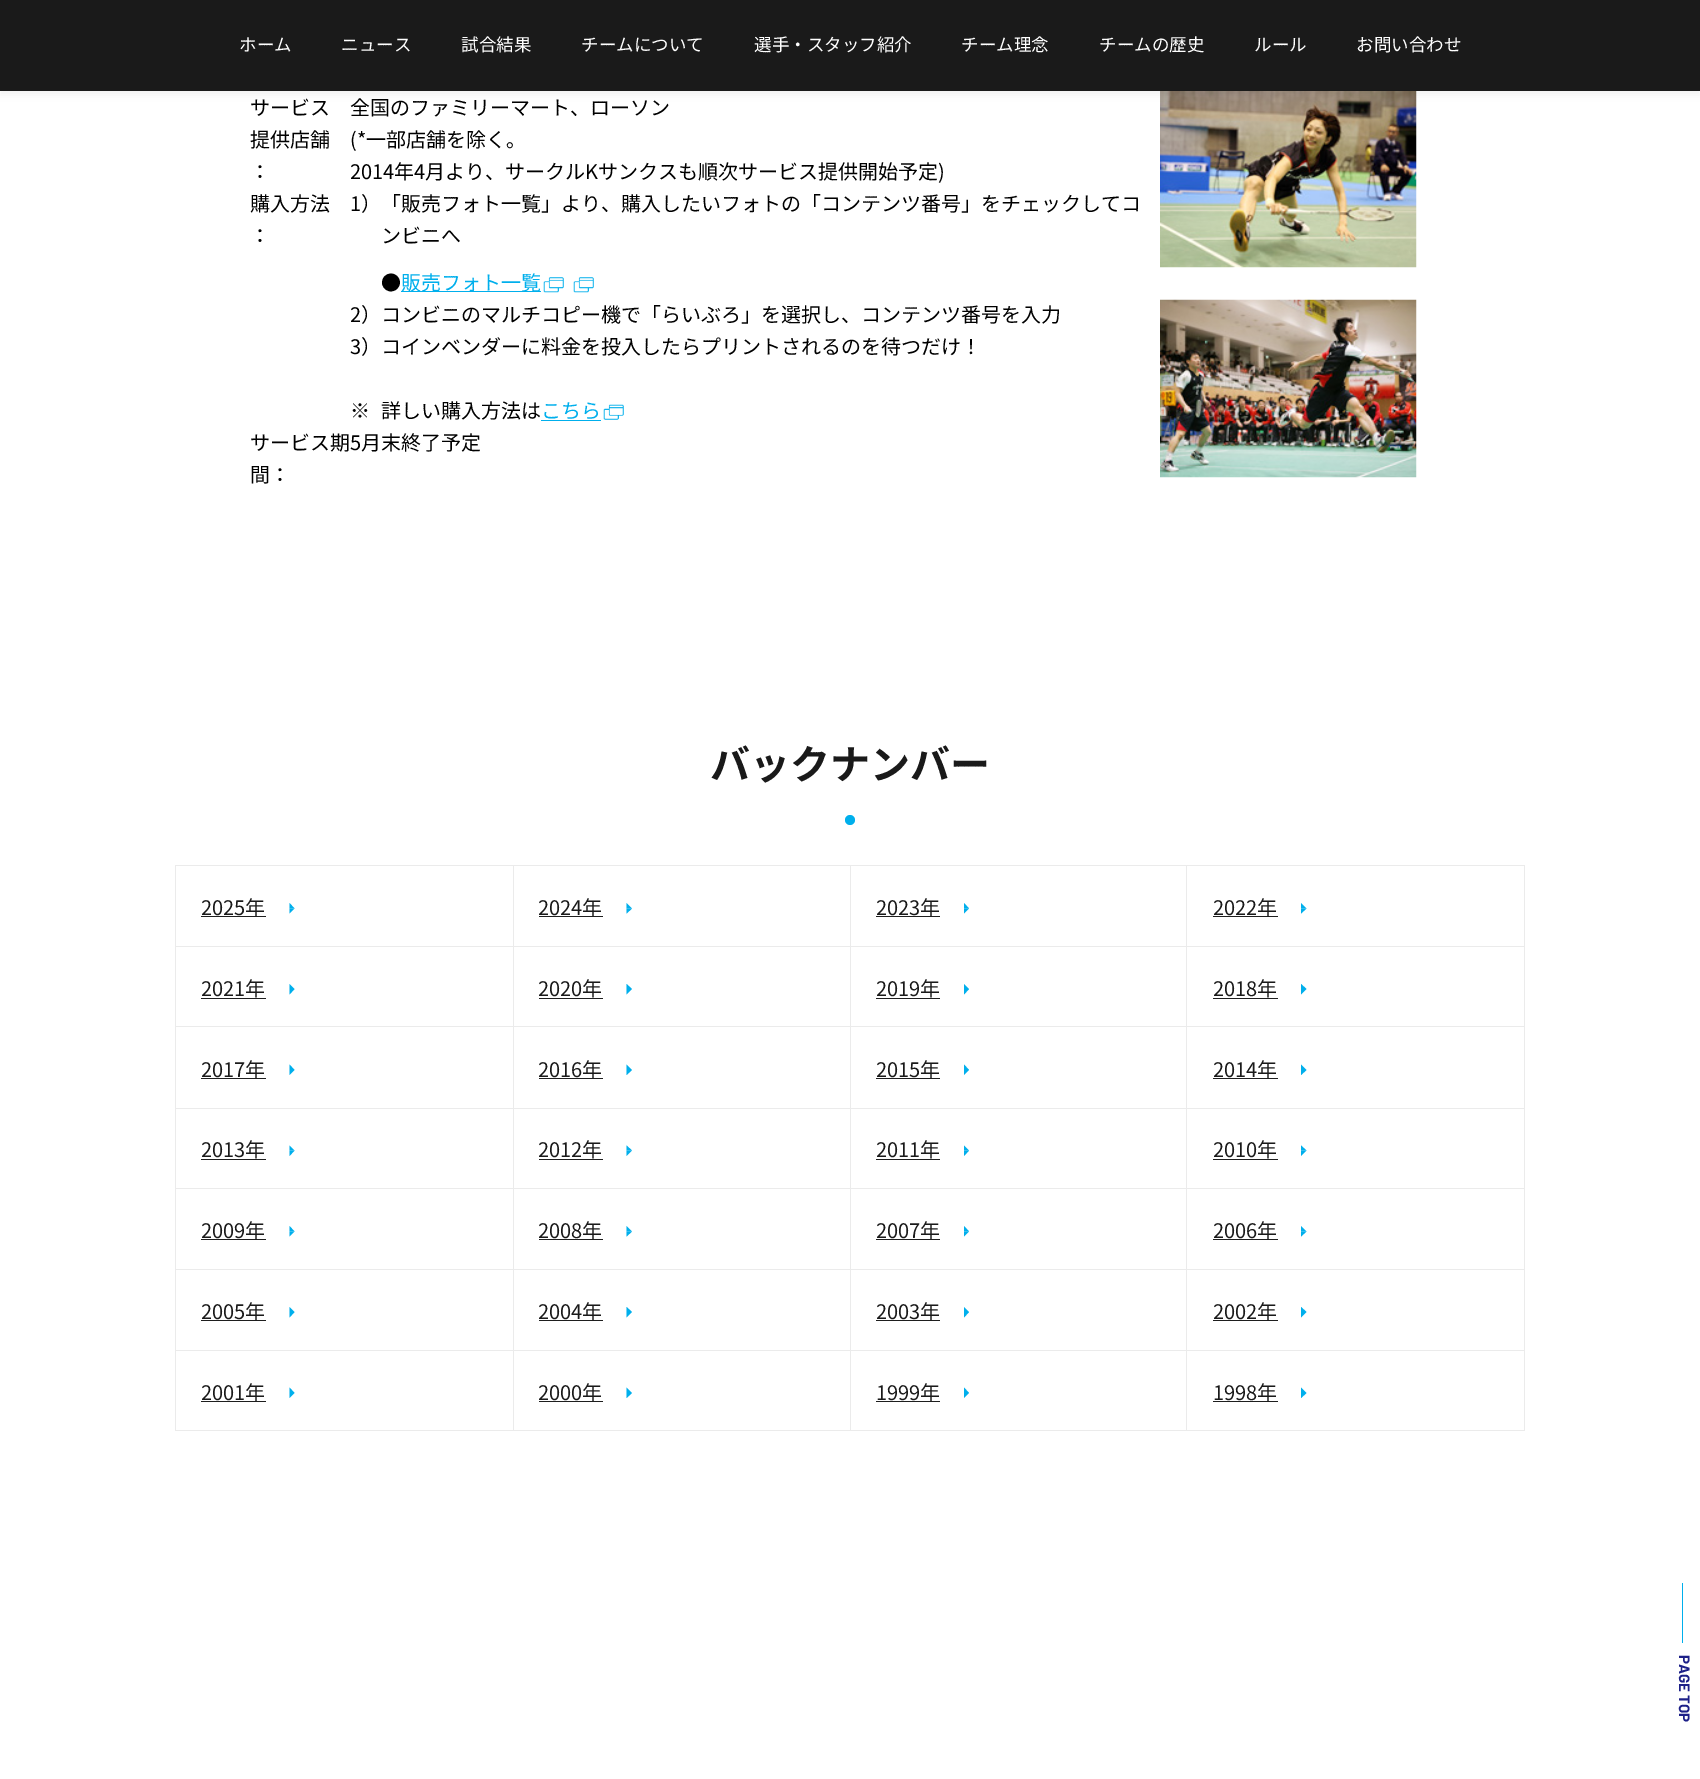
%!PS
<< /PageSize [1700 1779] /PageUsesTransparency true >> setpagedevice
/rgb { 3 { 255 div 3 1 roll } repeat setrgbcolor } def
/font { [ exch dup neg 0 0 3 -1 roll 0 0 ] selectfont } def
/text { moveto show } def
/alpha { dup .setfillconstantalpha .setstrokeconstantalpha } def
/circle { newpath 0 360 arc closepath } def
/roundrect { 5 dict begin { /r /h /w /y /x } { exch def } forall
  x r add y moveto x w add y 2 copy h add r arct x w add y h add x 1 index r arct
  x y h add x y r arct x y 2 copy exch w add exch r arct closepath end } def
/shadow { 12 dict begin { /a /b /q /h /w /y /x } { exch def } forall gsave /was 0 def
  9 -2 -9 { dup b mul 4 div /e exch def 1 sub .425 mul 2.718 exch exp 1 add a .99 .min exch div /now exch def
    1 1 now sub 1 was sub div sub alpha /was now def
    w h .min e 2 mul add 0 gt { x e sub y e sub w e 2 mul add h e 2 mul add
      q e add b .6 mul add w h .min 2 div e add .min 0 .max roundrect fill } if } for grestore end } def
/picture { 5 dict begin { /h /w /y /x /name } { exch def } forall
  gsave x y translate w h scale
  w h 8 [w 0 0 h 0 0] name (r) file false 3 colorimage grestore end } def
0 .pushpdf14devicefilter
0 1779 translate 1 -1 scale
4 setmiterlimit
255 255 255 rgb
0 0 1700 1779 rectfill
(img_01.rgb) 1160 91 257 177 picture
0 0 0 rgb
0 -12 1700 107 0 4 0.05 shadow
26 26 26 rgb
0 0 1700 91 rectfill
(img_02.rgb) 1160 299 257 179 picture
0 175 236 rgb
401 291 140 1 rectfill
(img_03.rgb) 543 277 21 16 picture
(img_04.rgb) 573 277 21 16 picture
541 420 60 1 rectfill
(img_05.rgb) 603 404 21 16 picture
850 820 5 circle fill
235 235 235 rgb
175 865 1350 1 rectfill
175 865 1 566 rectfill
513 866 1 565 rectfill
176 946 338 1 rectfill
30 30 30 rgb
201 916 65 1 rectfill
0 175 236 rgb
289.5 903 moveto 5 5.5 rlineto -5 0 rlineto closepath fill
294.5 908.5 moveto -5 5 rlineto 0 -5 rlineto closepath fill
235 235 235 rgb
850 866 1 565 rectfill
514 946 337 1 rectfill
30 30 30 rgb
539 916 64 1 rectfill
0 175 236 rgb
626.5 903 moveto 5.5 5.5 rlineto -5.5 0 rlineto closepath fill
632 908.5 moveto -5.5 5 rlineto 0 -5 rlineto closepath fill
235 235 235 rgb
1186 866 1 565 rectfill
851 946 337 1 rectfill
30 30 30 rgb
876 916 64 1 rectfill
0 175 236 rgb
964 903 moveto 5 5.5 rlineto -5 0 rlineto closepath fill
969 908.5 moveto -5 5 rlineto 0 -5 rlineto closepath fill
235 235 235 rgb
1524 866 1 565 rectfill
1188 946 337 1 rectfill
30 30 30 rgb
1213 916 65 1 rectfill
0 175 236 rgb
1301 903 moveto 5.5 5.5 rlineto -5.5 0 rlineto closepath fill
1306.5 908.5 moveto -5.5 5 rlineto 0 -5 rlineto closepath fill
235 235 235 rgb
176 1026 1349 1 rectfill
30 30 30 rgb
201 998 65 1 rectfill
0 175 236 rgb
289.5 984 moveto 5 5 rlineto -5 0 rlineto closepath 294.5 989 moveto -5 5.5 rlineto 0 -5.5 rlineto closepath fill
30 30 30 rgb
539 998 64 1 rectfill
0 175 236 rgb
626.5 984 moveto 5.5 5 rlineto -5.5 0 rlineto closepath 632 989 moveto -5.5 5.5 rlineto 0 -5.5 rlineto closepath fill
30 30 30 rgb
876 998 64 1 rectfill
0 175 236 rgb
964 984 moveto 5 5 rlineto -5 0 rlineto closepath 969 989 moveto -5 5.5 rlineto 0 -5.5 rlineto closepath fill
30 30 30 rgb
1213 998 65 1 rectfill
0 175 236 rgb
1301 984 moveto 5.5 5 rlineto -5.5 0 rlineto closepath 1306.5 989 moveto -5.5 5.5 rlineto 0 -5.5 rlineto closepath fill
235 235 235 rgb
176 1108 1349 1 rectfill
30 30 30 rgb
201 1078 65 1 rectfill
0 175 236 rgb
289.5 1064.5 moveto 5 5.5 rlineto -5 0 rlineto closepath 294.5 1070 moveto -5 5 rlineto 0 -5 rlineto closepath fill
30 30 30 rgb
539 1078 64 1 rectfill
0 175 236 rgb
626.5 1064.5 moveto 5.5 5.5 rlineto -5.5 0 rlineto closepath 632 1070 moveto -5.5 5 rlineto 0 -5 rlineto closepath fill
30 30 30 rgb
876 1078 64 1 rectfill
0 175 236 rgb
964 1064.5 moveto 5 5.5 rlineto -5 0 rlineto closepath 969 1070 moveto -5 5 rlineto 0 -5 rlineto closepath fill
30 30 30 rgb
1213 1078 65 1 rectfill
0 175 236 rgb
1301 1064.5 moveto 5.5 5.5 rlineto -5.5 0 rlineto closepath 1306.5 1070 moveto -5.5 5 rlineto 0 -5 rlineto closepath fill
235 235 235 rgb
176 1188 1349 1 rectfill
30 30 30 rgb
201 1159 65 1 rectfill
0 175 236 rgb
289.5 1145.5 moveto 5 5 rlineto -5 0 rlineto closepath fill
294.5 1150.5 moveto -5 5.5 rlineto 0 -5.5 rlineto closepath fill
30 30 30 rgb
539 1159 64 1 rectfill
0 175 236 rgb
626.5 1145.5 moveto 5.5 5 rlineto -5.5 0 rlineto closepath fill
632 1150.5 moveto -5.5 5.5 rlineto 0 -5.5 rlineto closepath fill
30 30 30 rgb
876 1159 64 1 rectfill
0 175 236 rgb
964 1145.5 moveto 5 5 rlineto -5 0 rlineto closepath fill
969 1150.5 moveto -5 5.5 rlineto 0 -5.5 rlineto closepath fill
30 30 30 rgb
1213 1159 65 1 rectfill
0 175 236 rgb
1301 1145.5 moveto 5.5 5 rlineto -5.5 0 rlineto closepath fill
1306.5 1150.5 moveto -5.5 5.5 rlineto 0 -5.5 rlineto closepath fill
235 235 235 rgb
176 1269 1349 1 rectfill
30 30 30 rgb
201 1239 65 1 rectfill
0 175 236 rgb
289.5 1226 moveto 5 5.5 rlineto -5 0 rlineto closepath fill
294.5 1231.5 moveto -5 5 rlineto 0 -5 rlineto closepath fill
30 30 30 rgb
539 1239 64 1 rectfill
0 175 236 rgb
626.5 1226 moveto 5.5 5.5 rlineto -5.5 0 rlineto closepath fill
632 1231.5 moveto -5.5 5 rlineto 0 -5 rlineto closepath fill
30 30 30 rgb
876 1239 64 1 rectfill
0 175 236 rgb
964 1226 moveto 5 5.5 rlineto -5 0 rlineto closepath fill
969 1231.5 moveto -5 5 rlineto 0 -5 rlineto closepath fill
30 30 30 rgb
1213 1239 65 1 rectfill
0 175 236 rgb
1301 1226 moveto 5.5 5.5 rlineto -5.5 0 rlineto closepath fill
1306.5 1231.5 moveto -5.5 5 rlineto 0 -5 rlineto closepath fill
235 235 235 rgb
176 1350 1349 1 rectfill
30 30 30 rgb
201 1320 65 1 rectfill
0 175 236 rgb
289.5 1307 moveto 5 5 rlineto -5 0 rlineto closepath 294.5 1312 moveto -5 5.5 rlineto 0 -5.5 rlineto closepath fill
30 30 30 rgb
539 1320 64 1 rectfill
0 175 236 rgb
626.5 1307 moveto 5.5 5 rlineto -5.5 0 rlineto closepath 632 1312 moveto -5.5 5.5 rlineto 0 -5.5 rlineto closepath fill
30 30 30 rgb
876 1320 64 1 rectfill
0 175 236 rgb
964 1307 moveto 5 5 rlineto -5 0 rlineto closepath 969 1312 moveto -5 5.5 rlineto 0 -5.5 rlineto closepath fill
30 30 30 rgb
1213 1320 65 1 rectfill
0 175 236 rgb
1301 1307 moveto 5.5 5 rlineto -5.5 0 rlineto closepath 1306.5 1312 moveto -5.5 5.5 rlineto 0 -5.5 rlineto closepath fill
235 235 235 rgb
176 1430 1349 1 rectfill
30 30 30 rgb
201 1401 65 1 rectfill
0 175 236 rgb
289.5 1387.5 moveto 5 5.5 rlineto -5 0 rlineto closepath 294.5 1393 moveto -5 5 rlineto 0 -5 rlineto closepath fill
30 30 30 rgb
539 1401 64 1 rectfill
0 175 236 rgb
626.5 1387.5 moveto 5.5 5.5 rlineto -5.5 0 rlineto closepath 632 1393 moveto -5.5 5 rlineto 0 -5 rlineto closepath fill
30 30 30 rgb
876 1401 64 1 rectfill
0 175 236 rgb
964 1387.5 moveto 5 5.5 rlineto -5 0 rlineto closepath 969 1393 moveto -5 5 rlineto 0 -5 rlineto closepath fill
30 30 30 rgb
1213 1401 65 1 rectfill
0 175 236 rgb
1301 1387.5 moveto 5.5 5.5 rlineto -5.5 0 rlineto closepath 1306.5 1393 moveto -5.5 5 rlineto 0 -5 rlineto closepath fill
1682 1583 1 60 rectfill
/NotoSansJP-Regular 17.5 font
255 255 255 rgb
(ホーム) 239 51 text
(ニュース) 341 51 text
(試合結果) 461 51 text
(チームについて) 581 51 text
(選手・スタッフ紹介) 754 51 text
(チーム理念) 961 51 text
(チームの歴史) 1099 51 text
(ルール) 1254 51 text
(お問い合わせ) 1356 51 text
/NotoSansJP-Regular 20 font
0 0 0 rgb
(サービス) 250 115 text
(提供店舗) 250 147 text
(：) 250 179 text
(全国のファミリーマート、ローソン) 350 115 text
(\(*一部店舗を除く。) 350 147 text
(2014年4月より、サークルKサンクスも順次サービス提供開始予定\)) 350 179 text
(購入方法) 250 211 text
(：) 250 243 text
(1）「販売フォト一覧」より、購入したいフォトの「コンテンツ番号」をチェックしてコ) 350 211 text
(ンビニへ) 381 243 text
(●) 381 290 text
0 175 236 rgb
(販売フォト一覧) 401 290 text
0 0 0 rgb
(2）コンビニのマルチコピー機で「らいぶろ」を選択し、コンテンツ番号を入力) 350 322 text
(3）コインベンダーに料金を投入したらプリントされるのを待つだけ！) 350 354 text
(※) 350 418 text
(詳しい購入方法は) 381 418 text
0 175 236 rgb
(こちら) 541 418 text
0 0 0 rgb
(サービス期5月末終了予定) 250 450 text
(間：) 250 482 text
/NotoSansJP-Bold 40 font
26 26 26 rgb
(バックナンバー) 710 779 text
/NotoSansJP-Regular 20 font
(2025年) 201 915 text
(2024年) 538 915 text
(2023年) 876 915 text
(2022年) 1213 915 text
(2021年) 201 996 text
(2020年) 538 996 text
(2019年) 876 996 text
(2018年) 1213 996 text
(2017年) 201 1077 text
(2016年) 538 1077 text
(2015年) 876 1077 text
(2014年) 1213 1077 text
(2013年) 201 1157 text
(2012年) 538 1157 text
(2011年) 876 1157 text
(2010年) 1213 1157 text
(2009年) 201 1238 text
(2008年) 538 1238 text
(2007年) 876 1238 text
(2006年) 1213 1238 text
(2005年) 201 1319 text
(2004年) 538 1319 text
(2003年) 876 1319 text
(2002年) 1213 1319 text
(2001年) 201 1400 text
(2000年) 538 1400 text
(1999年) 876 1400 text
(1998年) 1213 1400 text
/Barlow-Bold 15 font
29 32 136 rgb
gsave 1679 1655 translate 90 rotate 0 0 moveto (PAGE TOP) show grestore
.poppdf14devicefilter showpage
